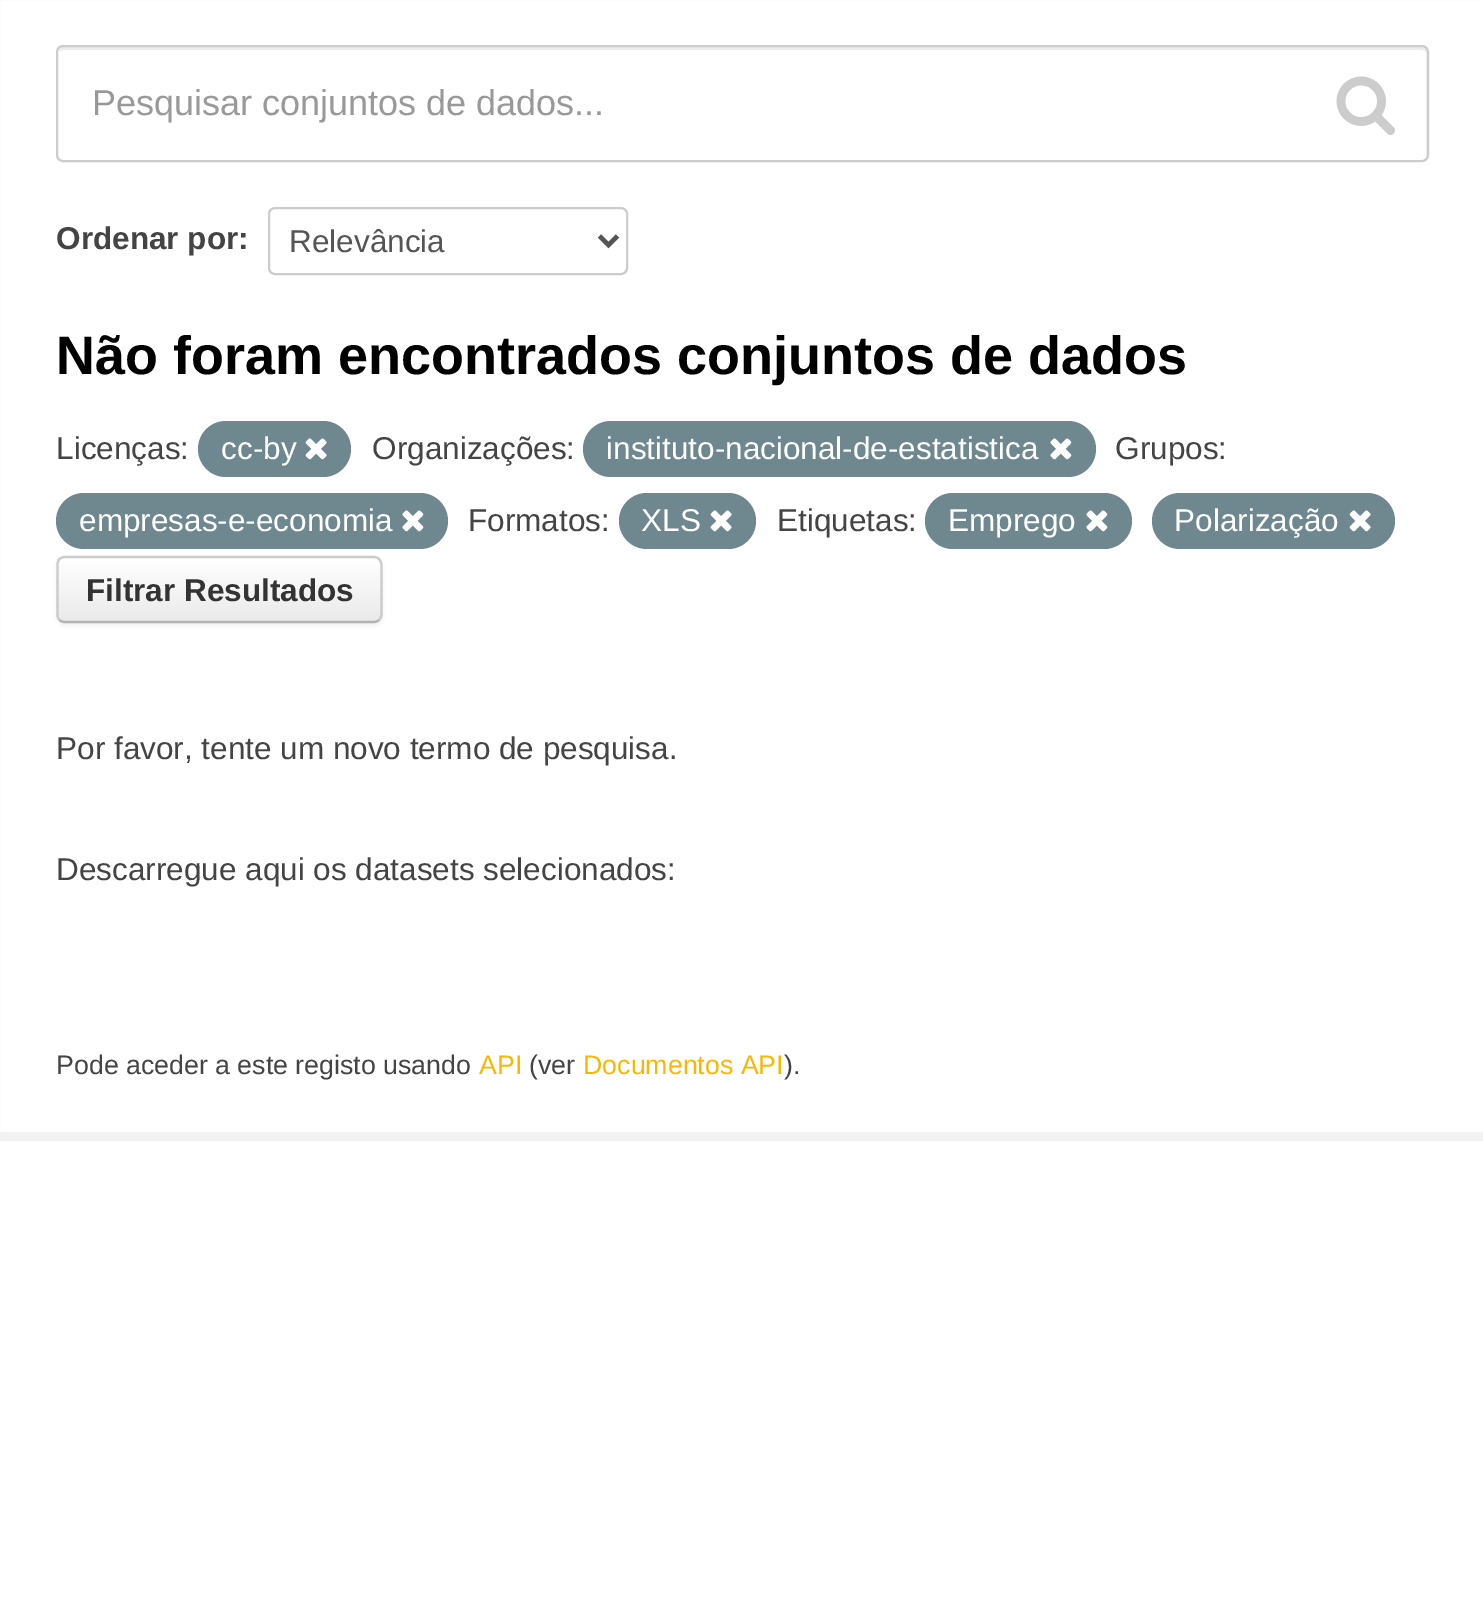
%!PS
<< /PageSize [1483 1616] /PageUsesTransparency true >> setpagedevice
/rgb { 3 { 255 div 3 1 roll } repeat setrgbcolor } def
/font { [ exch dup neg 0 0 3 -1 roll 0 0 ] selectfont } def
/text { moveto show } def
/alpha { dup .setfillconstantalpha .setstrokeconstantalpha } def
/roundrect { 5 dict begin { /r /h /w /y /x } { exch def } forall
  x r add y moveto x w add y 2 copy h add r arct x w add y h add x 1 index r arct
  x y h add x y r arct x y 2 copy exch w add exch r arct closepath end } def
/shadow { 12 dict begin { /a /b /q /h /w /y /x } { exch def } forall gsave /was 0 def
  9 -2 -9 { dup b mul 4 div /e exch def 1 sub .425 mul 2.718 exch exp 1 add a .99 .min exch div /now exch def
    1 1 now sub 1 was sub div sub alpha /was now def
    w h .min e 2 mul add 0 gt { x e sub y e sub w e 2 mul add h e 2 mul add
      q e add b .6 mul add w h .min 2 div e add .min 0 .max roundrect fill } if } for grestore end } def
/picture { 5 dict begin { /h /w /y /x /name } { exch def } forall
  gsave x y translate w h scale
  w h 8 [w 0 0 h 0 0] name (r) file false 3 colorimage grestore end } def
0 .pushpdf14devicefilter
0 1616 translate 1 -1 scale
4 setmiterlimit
255 255 255 rgb
0 0 1483 1616 rectfill
242 242 242 rgb
9 setlinewidth
-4.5 -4.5 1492 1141 rectstroke
236 236 236 rgb
63 50 moveto 1359 0 rlineto 2 0 4 2 4 4 rcurveto 0 104 rlineto 1 -1 1 -2 1 -3 rcurveto 0 -103 rlineto 0 -3 -2 -5 -5 -5 rcurveto -1358 0 rlineto -3 0 -5 2 -5 5 rcurveto 1 -1 3 -2 4 -2 rcurveto closepath fill
204 204 204 rgb
2 setlinewidth
57 46 1371 115 6 roundrect stroke
(img_01.rgb) 1336 76 59 59 picture
269 208 358 66 6 roundrect stroke
85 85 85 rgb
4.5 setlinewidth
599.5 236 moveto 9 9 rlineto 9 -9 rlineto stroke
111 136 144 rgb
198 421 153 56 28 roundrect fill
(img_02.rgb) 305 438 22 22 picture
583 421 513 56 28 roundrect fill
(img_03.rgb) 1050 438 22 22 picture
56 493 392 56 28 roundrect fill
(img_03.rgb) 402 510 22 22 picture
619 493 137 56 28 roundrect fill
(img_02.rgb) 710 510 22 22 picture
925 493 207 56 28 roundrect fill
(img_03.rgb) 1086 510 22 22 picture
1152 493 243 56 28 roundrect fill
(img_02.rgb) 1349 510 22 22 picture
0 0 0 rgb
56 558 327 68 9 2 0.05 shadow
gsave
56 556 327 67 9 roundrect clip newpath
gsave 56 558 moveto 327 0 rlineto 0 63 rlineto -327 0 rlineto closepath clip newpath
<< /ShadingType 2 /ColorSpace /DeviceRGB /Coords [219 558 219 621] /Extend [true true] /Function << /FunctionType 2 /Domain [0 1] /C0 [1 1 1] /C1 [0.918 0.918 0.918] /N 1 >> >> shfill grestore
grestore
179 179 179 rgb
2.2 setlinewidth
379 620 moveto -1.5 1.5 -3.5 2 -5.5 2 rcurveto -308.5 0 rlineto -2 0 -4 -0.5 -5.5 -2 rcurveto stroke
204 204 204 rgb
59.5 620 moveto -1.5 -1.5 -2 -3.5 -2 -6 rcurveto 0 -49 rlineto 0 -2.5 0.5 -4.5 2 -6 rcurveto 1.5 -1.5 3.5 -2 5.5 -2 rcurveto 308.5 0 rlineto 2 0 4 0.5 5.5 2 rcurveto 1.5 1.5 2.5 3.5 2.5 6 rcurveto 0 49 rlineto 0 2.5 -1 4.5 -2.5 6 rcurveto stroke
/LiberationSans-Regular 36 font
153 153 153 rgb
(Pesquisar conjuntos de dados...) 92 115 text
/LiberationSans-Bold 31.5 font
68 68 68 rgb
(Ordenar por:) 56 249 text
/LiberationSans-Regular 31.5 font
85 85 85 rgb
(Relevância) 289 252 text
/LiberationSans-Bold 54 font
0 0 0 rgb
(Não foram encontrados conjuntos de dados) 56 374 text
/LiberationSans-Regular 31.5 font
68 68 68 rgb
(Licenças:) 56 459 text
255 255 255 rgb
(cc-by) 221 459 text
68 68 68 rgb
(Organizações:) 372 459 text
255 255 255 rgb
(instituto-nacional-de-estatistica) 606 459 text
68 68 68 rgb
(Grupos:) 1115 459 text
255 255 255 rgb
(empresas-e-economia) 79 531 text
68 68 68 rgb
(Formatos:) 468 531 text
255 255 255 rgb
(XLS) 641 531 text
68 68 68 rgb
(Etiquetas:) 777 531 text
255 255 255 rgb
(Emprego) 948 531 text
(Polarização) 1174 531 text
/LiberationSans-Bold 31.5 font
51 51 51 rgb
(Filtrar Resultados) 86 601 text
/LiberationSans-Regular 31.5 font
68 68 68 rgb
(Por favor, tente um novo termo de pesquisa.) 56 759 text
(Descarregue aqui os datasets selecionados:) 56 880 text
/LiberationSans-Regular 26.75 font
(Pode aceder a este registo usando) 56 1074 text
251 182 0 rgb
(API) 479 1074 text
68 68 68 rgb
(\(ver) 529 1074 text
251 182 0 rgb
(Documentos API) 583 1074 text
68 68 68 rgb
(\).) 784 1074 text
.poppdf14devicefilter showpage
